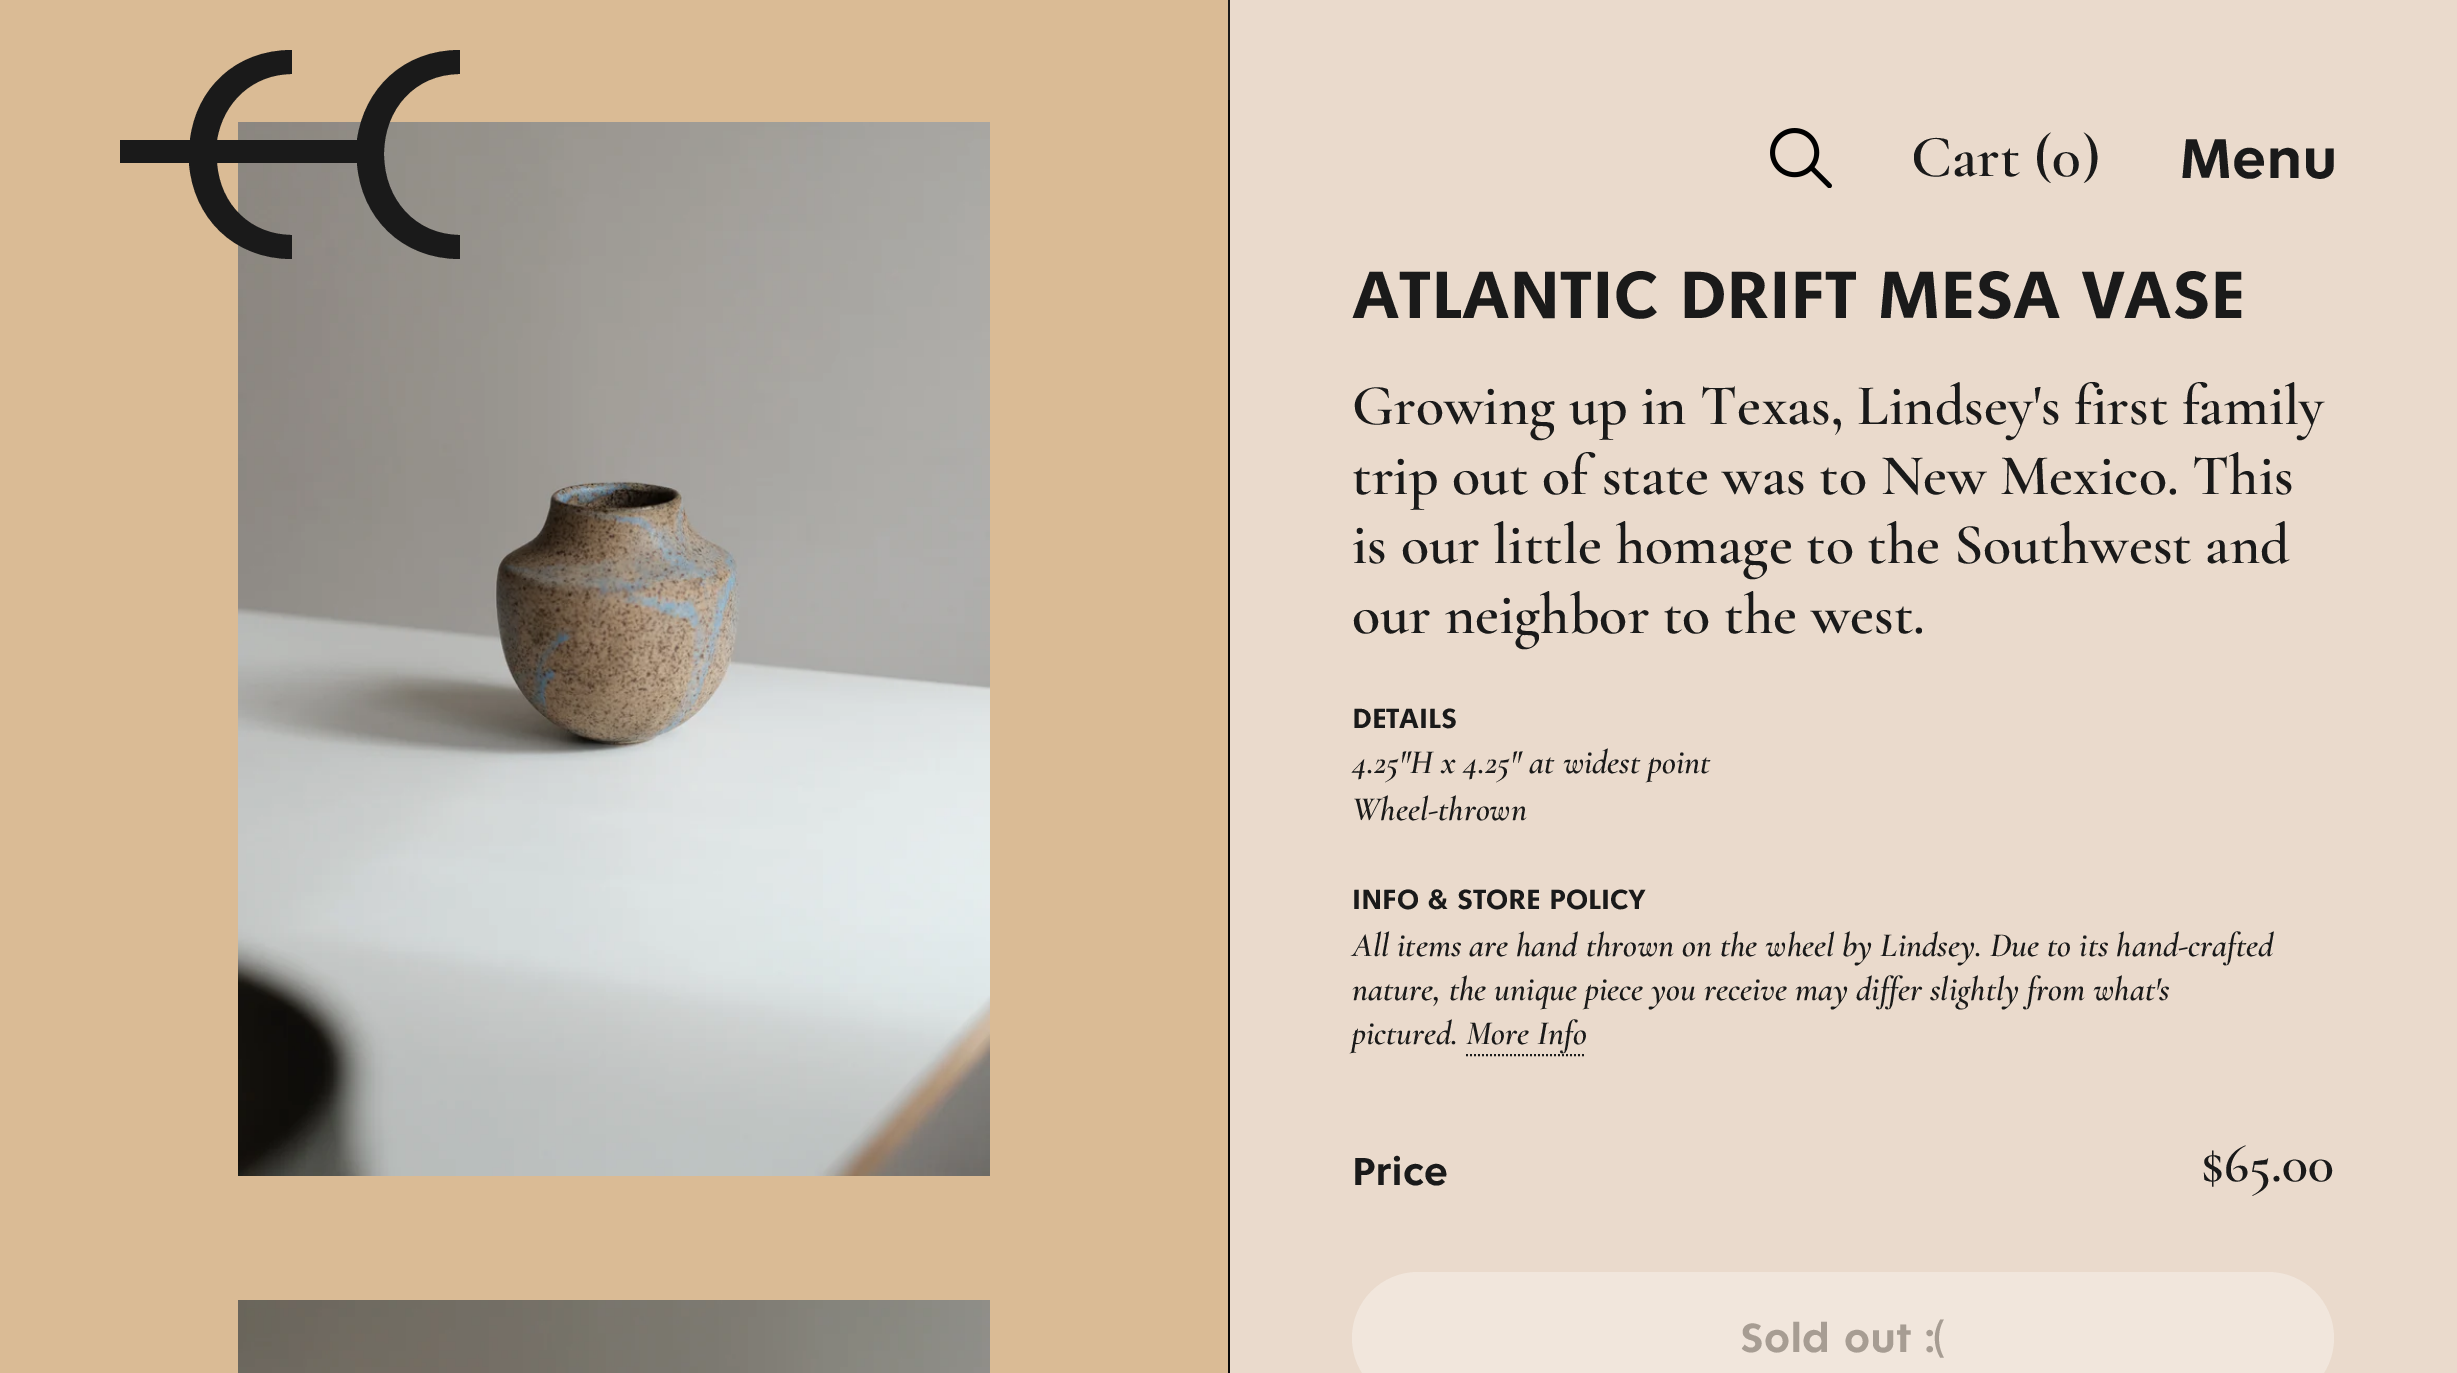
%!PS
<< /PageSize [2457 1373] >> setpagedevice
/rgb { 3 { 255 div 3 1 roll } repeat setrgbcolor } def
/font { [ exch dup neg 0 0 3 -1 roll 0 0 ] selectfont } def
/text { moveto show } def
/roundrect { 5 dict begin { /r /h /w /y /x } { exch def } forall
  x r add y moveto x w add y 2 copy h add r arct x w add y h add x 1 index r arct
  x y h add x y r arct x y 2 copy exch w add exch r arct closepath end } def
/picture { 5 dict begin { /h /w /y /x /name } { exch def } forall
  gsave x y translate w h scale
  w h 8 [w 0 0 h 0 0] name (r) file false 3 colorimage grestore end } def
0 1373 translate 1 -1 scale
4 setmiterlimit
234 218 204 rgb
0 0 2457 1373 rectfill
218 187 149 rgb
0 0 1228 1373 rectfill
(img_02.rgb) 238 122 752 1054 picture
26 26 26 rgb
460 74 moveto 0 -24 rlineto -57 0 -96 39 -103 90 rcurveto -140 0 rlineto 6 -38 36 -66 75 -66 rcurveto 0 -24 rlineto -57 0 -96 39 -102 90 rcurveto -70 0 rlineto 0 23 rlineto 69 0 rlineto 4 54 44 96 103 96 rcurveto 0 -24 rlineto -41 0 -72 -30 -75 -72 rcurveto 140 0 rlineto 4 54 44 96 103 96 rcurveto 0 -24 rlineto -44 0 -76 -35 -76 -81 rcurveto 0 -45 31 -80 76 -80 rcurveto closepath fill
(img_01.rgb) 1770 128 62 60 picture
1228 0 2 100 rectfill
(img_03.rgb) 238 1300 752 73 picture
8 8 8 rgb
1228 100 2 1273 rectfill
26 26 26 rgb
2 setlinewidth
[2 2] 0 setdash
1466 1055 moveto 120 0 rlineto stroke
241 230 220 rgb
1352 1272 982 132 66 roundrect fill
/CormorantGaramond-SemiBold 60 font
26 26 26 rgb
(Cart \(0) 1911 176 text
(\)) 2082 176 text
/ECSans-SemiBold 60 font
(Menu) 2180 178 text
/ECSans-SemiBold 72 font
(ATLANTIC DRIFT MESA VASE) 1352 318 text
/CormorantGaramond-SemiBold 58 font
(Growing up in Texas, Lindsey's first family) 1352 424 text
(trip out of state was to New Mexico. This) 1352 494 text
(is our little homage to the Southwest and) 1352 563 text
(our neighbor to the west.) 1352 633 text
/ECSans-SemiBold 30 font
(DETAILS) 1352 728 text
/CormorantGaramond-SemiBoldItalic 34 font
(4.25"H x 4.25" at widest point) 1352 773 text
(Wheel-thrown) 1352 820 text
/ECSans-SemiBold 30 font
(INFO & STORE POLICY) 1352 909 text
/CormorantGaramond-SemiBoldItalic 34 font
(All items are hand thrown on the wheel by Lindsey. Due to its hand-crafted) 1352 956 text
(nature, the unique piece you receive may differ slightly from what's) 1352 1000 text
(pictured. More Info) 1352 1044 text
/ECSans-SemiBold 42 font
(Price) 1352 1185 text
/CormorantGaramond-SemiBold 54 font
($65.00) 2201 1181 text
/ECSans-SemiBold 44 font
167 157 147 rgb
(Sold out :\() 1740 1352 text
showpage
